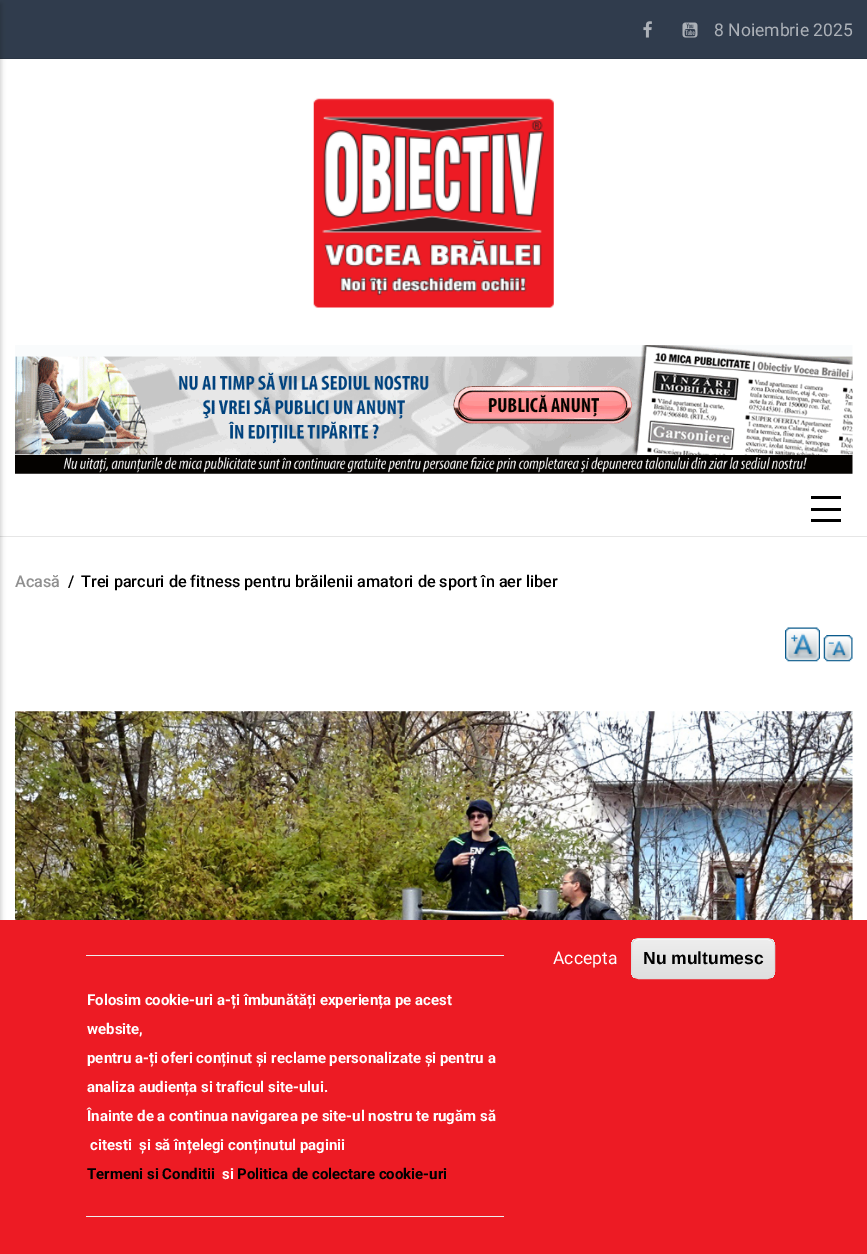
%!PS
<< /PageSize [867 1254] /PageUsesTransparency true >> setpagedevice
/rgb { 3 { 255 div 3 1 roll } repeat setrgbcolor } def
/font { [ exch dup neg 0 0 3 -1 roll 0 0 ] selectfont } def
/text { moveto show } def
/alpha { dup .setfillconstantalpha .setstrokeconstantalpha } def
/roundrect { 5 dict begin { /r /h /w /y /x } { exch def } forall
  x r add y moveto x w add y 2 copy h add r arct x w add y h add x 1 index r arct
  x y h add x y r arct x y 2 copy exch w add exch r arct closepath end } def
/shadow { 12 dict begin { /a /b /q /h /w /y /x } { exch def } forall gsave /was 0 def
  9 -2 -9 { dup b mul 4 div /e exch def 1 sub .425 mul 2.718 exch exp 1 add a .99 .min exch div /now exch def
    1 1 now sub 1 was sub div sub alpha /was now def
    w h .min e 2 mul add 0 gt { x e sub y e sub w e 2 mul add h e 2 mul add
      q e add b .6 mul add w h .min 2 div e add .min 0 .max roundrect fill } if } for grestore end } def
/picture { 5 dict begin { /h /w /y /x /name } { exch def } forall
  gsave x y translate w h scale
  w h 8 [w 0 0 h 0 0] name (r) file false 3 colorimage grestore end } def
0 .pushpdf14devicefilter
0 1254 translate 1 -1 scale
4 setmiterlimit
255 255 255 rgb
0 0 867 1254 rectfill
230 230 230 rgb
0 536 867 1 rectfill
48 60 77 rgb
0 0 867 58 rectfill
43 54 69 rgb
0 58 867 1 rectfill
0 0 0 rgb
-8 4 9 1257 0 2.5 0.2 shadow
811 496 30 3 rectfill
811 508 30 3 rectfill
811 519 30 3 rectfill
(img_01.rgb) 643 21 9 17 picture
(img_02.rgb) 682 22 16 16 picture
(img_03.rgb) 313 98 241 210 picture
(img_04.rgb) 15 345 838 129 picture
(img_05.rgb) 785 627 35 35 picture
(img_06.rgb) 823 635 30 27 picture
(img_07.rgb) 15 711 838 209 picture
237 27 36 rgb
0 920 867 334 rectfill
gsave
631 938 144 41 8 roundrect clip newpath
gsave 631 939 moveto 144 0 rlineto 0 39 rlineto -144 0 rlineto closepath clip newpath
<< /ShadingType 2 /ColorSpace /DeviceRGB /Coords [703 939 703 978] /Extend [true true] /Function << /FunctionType 3 /Domain [0 1] /Functions [<< /FunctionType 2 /Domain [0 1] /C0 [0.929 0.929 0.929] /C1 [0.929 0.929 0.929] /N 1 >> << /FunctionType 2 /Domain [0 1] /C0 [0.929 0.929 0.929] /C1 [0.875 0.875 0.875] /N 1 >>] /Bounds [0.05] /Encode [0 1 0 1] >> >> shfill grestore
grestore
255 255 255 rgb
639 940 moveto 129 0 rlineto 3 0 6 3 6 6 rcurveto 0 -1 rlineto 0 -3 -3 -6 -6 -6 rcurveto -129 0 rlineto -2 0 -4 1 -5 3 rcurveto 1 -1 3 -2 5 -2 rcurveto closepath fill
220 220 220 rgb
631.5 938.5 143 40 7.5 roundrect stroke
238 238 238 rgb
86 955 418 1 rectfill
86 1216 418 1 rectfill
/Roboto-Regular 17.5 font
172 177 184 rgb
(8 Noiembrie 2025) 714 36 text
/Roboto-Medium 16.25 font
144 144 144 rgb
(Acasă) 15 587 text
0 0 0 rgb
(/) 68 587 text
(Trei parcuri de fitness pentru brăilenii amatori de sport în aer liber) 81 587 text
/Roboto-Regular 17.5 font
255 255 255 rgb
(Accepta) 553 964 text
/LiberationSans-Bold 17.5 font
0 0 0 rgb
(Nu multumesc) 643 964 text
/Roboto-Bold 15 font
255 255 255 rgb
(Folosim cookie-uri a-ți îmbunătăți experiența pe acest) 87 1005 text
(website,) 87 1034 text
(pentru a-ți oferi conținut și reclame personalizate și pentru a) 87 1063 text
(analiza audiența si traficul site-ului.) 87 1092 text
(Înainte de a continua navigarea pe site-ul nostru te rugăm să) 87 1121 text
(citesti  și să înțelegi conținutul paginii) 90 1150 text
0 0 0 rgb
(Termeni si Conditii) 87 1179 text
255 255 255 rgb
(si) 222 1179 text
0 0 0 rgb
(Politica de colectare cookie-uri) 237 1179 text
.poppdf14devicefilter showpage
